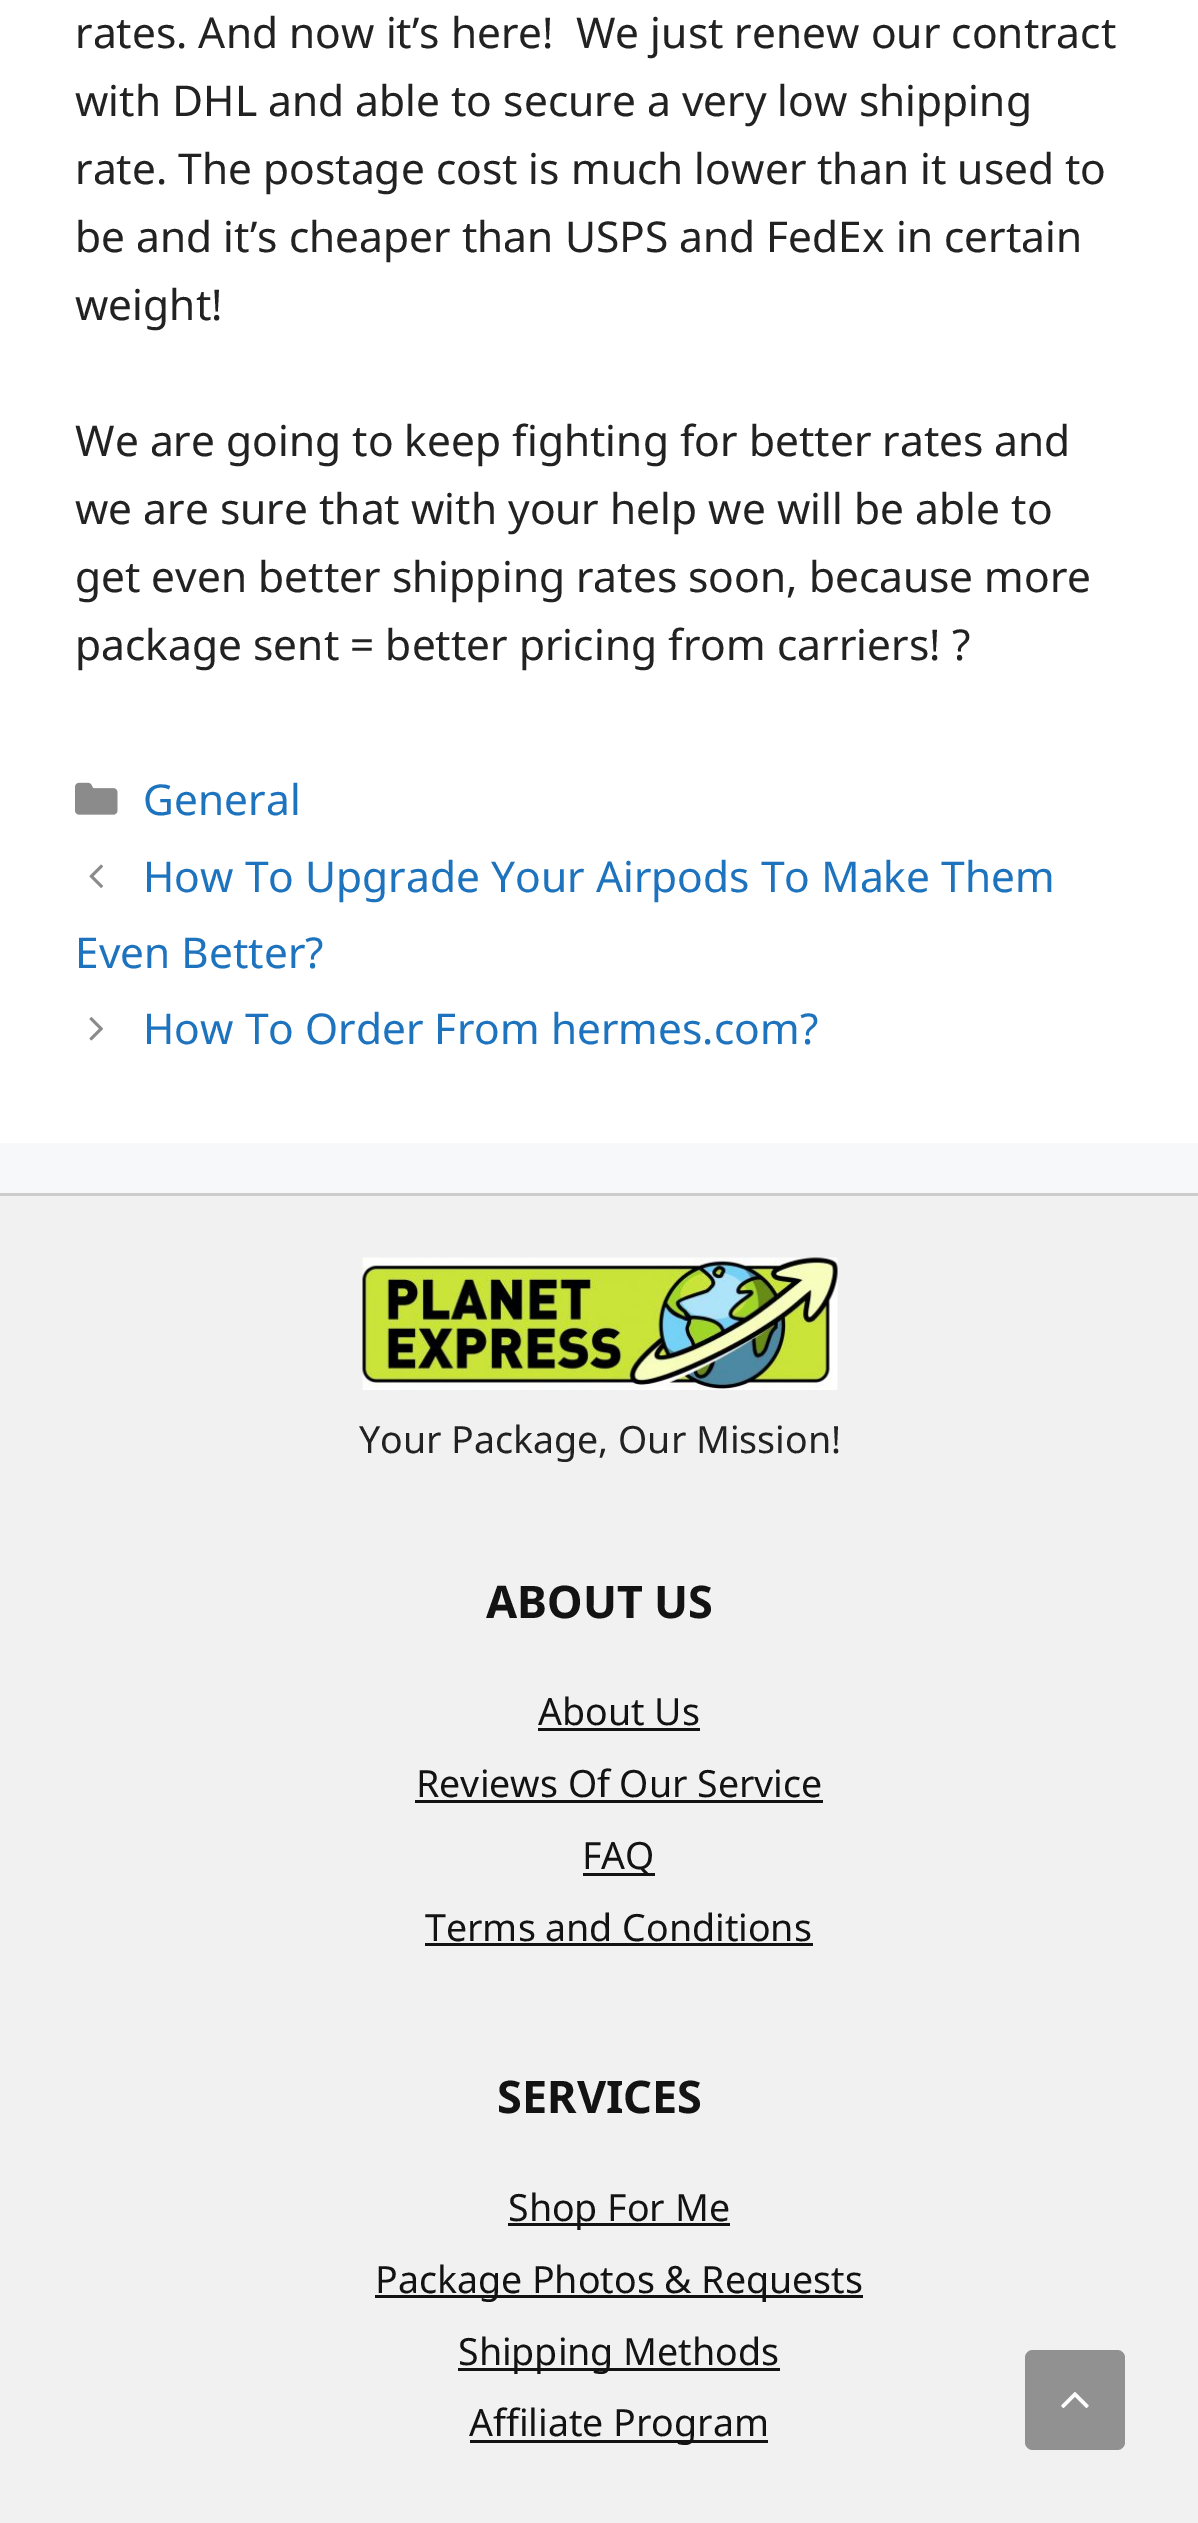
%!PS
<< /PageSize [1198 2523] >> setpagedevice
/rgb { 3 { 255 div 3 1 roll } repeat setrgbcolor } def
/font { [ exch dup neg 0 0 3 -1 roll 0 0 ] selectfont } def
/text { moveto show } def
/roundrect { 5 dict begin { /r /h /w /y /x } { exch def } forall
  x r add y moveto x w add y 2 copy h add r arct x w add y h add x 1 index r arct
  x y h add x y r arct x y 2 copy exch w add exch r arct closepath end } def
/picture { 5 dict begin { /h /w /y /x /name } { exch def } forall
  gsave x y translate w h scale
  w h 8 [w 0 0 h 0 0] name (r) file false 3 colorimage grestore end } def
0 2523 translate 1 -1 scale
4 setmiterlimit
247 248 249 rgb
0 0 1198 2523 rectfill
255 255 255 rgb
0 0 1198 1143 rectfill
(img_01.rgb) 75 782 43 33 picture
(img_02.rgb) 89 864 14 24 picture
(img_03.rgb) 89 1017 14 24 picture
241 241 241 rgb
0 1196 1198 1327 rectfill
204 204 204 rgb
0 1193 1198 3 rectfill
(img_04.rgb) 362 1257 476 133 picture
19 19 19 rgb
538 1728 162 3 rectfill
415 1800 408 3 rectfill
583 1873 72 3 rectfill
425 1943 388 3 rectfill
508 2223 222 3 rectfill
375 2295 488 3 rectfill
458 2368 322 3 rectfill
470 2440 298 3 rectfill
145 145 145 rgb
1025 2350 100 100 8 roundrect fill
(img_05.rgb) 1061 2392 28 16 picture
/NotoSans-Regular 42.5 font
34 34 34 rgb
(rates. And now it’s here!  We just renew our contract) 75 48 text
(with DHL and able to secure a very low shipping) 75 116 text
(rate. The postage cost is much lower than it used to) 75 184 text
(be and it’s cheaper than USPS and FedEx in certain) 75 252 text
(weight!) 75 320 text
(We are going to keep fighting for better rates and) 75 456 text
(we are sure that with your help we will be able to) 75 524 text
(get even better shipping rates soon, because more) 75 592 text
(package sent = better pricing from carriers! ?) 75 660 text
30 115 190 rgb
(General) 143 815 text
(How To Upgrade Your Airpods To Make Them) 143 892 text
(Even Better?) 75 968 text
(How To Order From hermes.com?) 143 1044 text
/NotoSans-Regular 37.5 font
34 34 34 rgb
(Your Package, Our Mission!) 359 1453 text
/NotoSans-Bold 45 font
19 19 19 rgb
(ABOUT US) 486 1618 text
/NotoSans-Regular 37.5 font
(About Us) 538 1725 text
(Reviews Of Our Service) 416 1797 text
(FAQ) 582 1869 text
(Terms and Conditions) 425 1941 text
/NotoSans-Bold 45 font
(SERVICES) 497 2113 text
/NotoSans-Regular 37.5 font
(Shop For Me) 508 2221 text
(Package Photos & Requests) 375 2293 text
(Shipping Methods) 458 2365 text
(Affiliate Program) 469 2436 text
showpage
